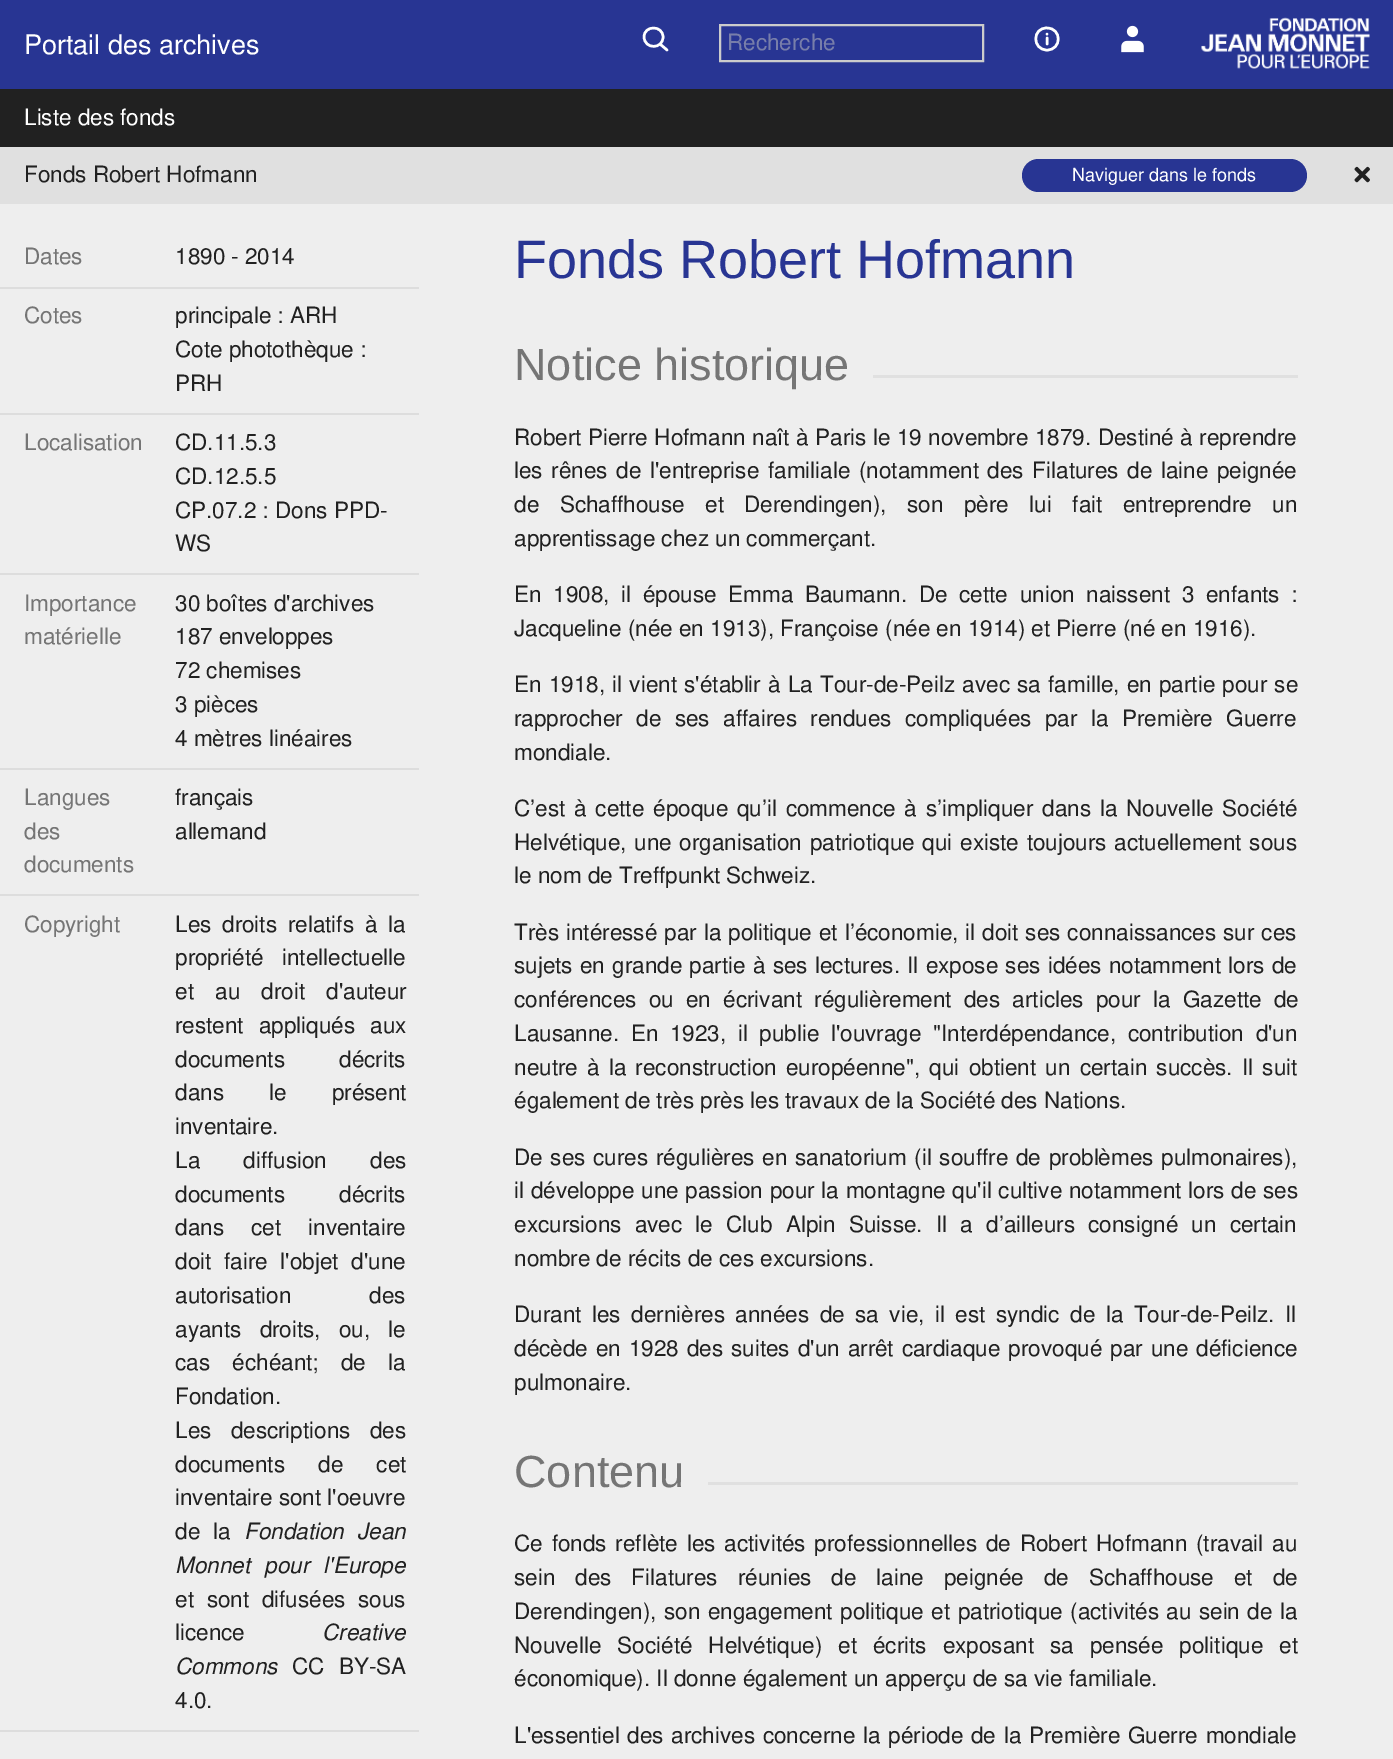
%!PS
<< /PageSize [1393 1759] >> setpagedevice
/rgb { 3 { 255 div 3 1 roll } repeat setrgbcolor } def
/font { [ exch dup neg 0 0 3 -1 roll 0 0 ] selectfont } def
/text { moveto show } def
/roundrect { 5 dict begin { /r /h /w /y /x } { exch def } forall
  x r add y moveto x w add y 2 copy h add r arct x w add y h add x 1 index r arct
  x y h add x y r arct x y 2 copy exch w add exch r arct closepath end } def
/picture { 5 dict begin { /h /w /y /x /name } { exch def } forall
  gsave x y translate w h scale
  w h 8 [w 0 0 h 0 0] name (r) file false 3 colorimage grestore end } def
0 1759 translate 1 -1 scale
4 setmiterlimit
238 238 238 rgb
0 0 1393 1759 rectfill
40 53 147 rgb
0 0 1393 89 rectfill
255 255 255 rgb
2.5 setlinewidth
1 setlinecap
1 setlinejoin
660 44 moveto 7 6 rlineto 663 37 moveto 0 12.5 -18.5 12.5 -19 0 rcurveto 0 -12 19 -12 19 0 rcurveto closepath stroke
204 204 204 rgb
2 setlinewidth
0 setlinecap
0 setlinejoin
720 25 263 36 rectstroke
255 255 255 rgb
2.5 setlinewidth
1 setlinecap
1 setlinejoin
1047 38 moveto 0 6 rlineto 1047 50 moveto -15 0 -15 -22.5 0 -22 rcurveto 15 0 15 22 0 22 rcurveto closepath 1047 34 moveto 0 0 rlineto closepath stroke
(img_01.rgb) 1121 25 23 28 picture
(img_02.rgb) 1201 17 169 52 picture
33 33 33 rgb
0 89 1393 58 rectfill
224 224 224 rgb
0 147 1393 57 rectfill
40 53 147 rgb
1022 159 285 33 16.5 roundrect fill
(img_03.rgb) 1354 166 16 17 picture
221 221 221 rgb
0 287 419 2 rectfill
0 413 419 2 rectfill
0 573 419 2 rectfill
0 768 419 2 rectfill
0 894 419 2 rectfill
0 1730 419 2 rectfill
224 224 224 rgb
873 375 425 3 rectfill
708 1482 590 3 rectfill
/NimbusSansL-Regular 27 font
255 255 255 rgb
(Portail des archives) 24 54 text
/NimbusSansL-Regular 22.5 font
120 126 170 rgb
(Recherche) 727 50 text
255 255 255 rgb
(Liste des fonds) 24 125 text
33 33 33 rgb
(Fonds Robert Hofmann) 24 182 text
/NimbusSansL-Regular 18 font
255 255 255 rgb
(Naviguer dans le fonds) 1072 181 text
/NimbusSansL-Regular 22.5 font
117 117 117 rgb
(Dates) 24 264 text
33 33 33 rgb
(1890 - 2014) 175 264 text
117 117 117 rgb
(Cotes) 24 323 text
33 33 33 rgb
(principale : ARH) 175 323 text
(Cote photothèque :) 175 357 text
(PRH) 175 391 text
117 117 117 rgb
(Localisation) 24 450 text
33 33 33 rgb
(CD.11.5.3) 175 450 text
(CD.12.5.5) 175 484 text
(CP.07.2 : Dons PPD-) 175 518 text
(WS) 175 551 text
117 117 117 rgb
(Importance) 24 611 text
(matérielle) 24 644 text
33 33 33 rgb
(30 boîtes d'archives) 175 611 text
(187 enveloppes) 175 644 text
(72 chemises) 175 678 text
(3 pièces) 175 712 text
(4 mètres linéaires) 175 746 text
117 117 117 rgb
(Langues) 24 805 text
(des) 24 839 text
(documents) 24 872 text
33 33 33 rgb
(français) 175 805 text
(allemand) 175 839 text
117 117 117 rgb
(Copyright) 24 932 text
33 33 33 rgb
175 932 moveto 4.5 0 32 (Les droits relatifs à la) widthshow
175 965 moveto 12 0 32 (propriété intellectuelle) widthshow
175 999 moveto 15 0 32 (et au droit d'auteur) widthshow
175 1033 moveto 9 0 32 (restent appliqués aux) widthshow
175 1067 moveto 48 0 32 (documents décrits) widthshow
175 1100 moveto 39 0 32 (dans le présent) widthshow
(inventaire.) 175 1134 text
175 1168 moveto 37 0 32 (La diffusion des) widthshow
175 1202 moveto 48 0 32 (documents décrits) widthshow
175 1235 moveto 21 0 32 (dans cet inventaire) widthshow
175 1269 moveto 6.5 0 32 (doit faire l'objet d'une) widthshow
175 1303 moveto 72 0 32 (autorisation des) widthshow
175 1337 moveto 12 0 32 (ayants droits, ou, le) widthshow
175 1370 moveto 16 0 32 (cas échéant; de la) widthshow
(Fondation.) 175 1404 text
175 1438 moveto 13 0 32 (Les descriptions des) widthshow
175 1472 moveto 27 0 32 (documents de cet) widthshow
(inventaire sont l'oeuvre) 175 1505 text
175 1539 moveto 7 0 32 (de la) widthshow
/NimbusSansL-Italic 22.5 font
244 1539 moveto 7 0 32 (Fondation Jean) widthshow
175 1573 moveto 8 0 32 (Monnet pour l'Europe) widthshow
/NimbusSansL-Regular 22.5 font
175 1607 moveto 6.5 0 32 (et sont difusées sous) widthshow
(licence) 175 1640 text
/NimbusSansL-Italic 22.5 font
(Creative) 322 1640 text
(Commons) 175 1674 text
/NimbusSansL-Regular 22.5 font
292 1674 moveto 8 0 32 (CC BY-SA) widthshow
(4.0.) 175 1708 text
/LiberationSans-Regular 54 font
40 53 147 rgb
(Fonds Robert Hofmann) 514 278 text
/LiberationSans-Regular 45 font
117 117 117 rgb
(Notice historique) 514 380 text
/NimbusSansL-Regular 22.5 font
33 33 33 rgb
514 445 moveto 0.25 0 32 (Robert Pierre Hofmann naît à Paris le 19 novembre 1879. Destiné à reprendre) widthshow
514 478 moveto 2.4 0 32 (les rênes de l'entreprise familiale \(notamment des Filatures de laine peignée) widthshow
514 512 moveto 14.25 0 32 (de Schaffhouse et Derendingen\), son père lui fait entreprendre un) widthshow
(apprentissage chez un commerçant.) 514 546 text
514 602 moveto 5.4 0 32 (En 1908, il épouse Emma Baumann. De cette union naissent 3 enfants :) widthshow
(Jacqueline \(née en 1913\), Françoise \(née en 1914\) et Pierre \(né en 1916\).) 514 636 text
514 692 moveto 1 0 32 (En 1918, il vient s'établir à La Tour-de-Peilz avec sa famille, en partie pour se) widthshow
514 726 moveto 7.25 0 32 (rapprocher de ses affaires rendues compliquées par la Première Guerre) widthshow
(mondiale.) 514 760 text
514 816 moveto 2.6 0 32 (C’est à cette époque qu’il commence à s’impliquer dans la Nouvelle Société) widthshow
514 850 moveto 1.5 0 32 (Helvétique, une organisation patriotique qui existe toujours actuellement sous) widthshow
(le nom de Treffpunkt Schweiz.) 514 883 text
514 940 moveto 0.75 0 32 (Très intéressé par la politique et l’économie, il doit ses connaissances sur ces) widthshow
514 973 moveto 1 0 32 (sujets en grande partie à ses lectures. Il expose ses idées notamment lors de) widthshow
514 1007 moveto 6 0 32 (conférences ou en écrivant régulièrement des articles pour la Gazette de) widthshow
514 1041 moveto 5.4 0 32 (Lausanne. En 1923, il publie l'ouvrage "Interdépendance, contribution d'un) widthshow
514 1075 moveto 3 0 32 (neutre à la reconstruction européenne", qui obtient un certain succès. Il suit) widthshow
(également de très près les travaux de la Société des Nations.) 514 1108 text
514 1165 moveto 1.5 0 32 (De ses cures régulières en sanatorium \(il souffre de problèmes pulmonaires\),) widthshow
514 1198 moveto 0.5 0 32 (il développe une passion pour la montagne qu'il cultive notamment lors de ses) widthshow
514 1232 moveto 7 0 32 (excursions avec le Club Alpin Suisse. Il a d’ailleurs consigné un certain) widthshow
(nombre de récits de ces excursions.) 514 1266 text
514 1322 moveto 4.25 0 32 (Durant les dernières années de sa vie, il est syndic de la Tour-de-Peilz. Il) widthshow
514 1356 moveto 1.75 0 32 (décède en 1928 des suites d'un arrêt cardiaque provoqué par une déficience) widthshow
(pulmonaire.) 514 1390 text
/LiberationSans-Regular 45 font
117 117 117 rgb
(Contenu) 514 1487 text
/NimbusSansL-Regular 22.5 font
33 33 33 rgb
514 1551 moveto 2.6 0 32 (Ce fonds reflète les activités professionnelles de Robert Hofmann \(travail au) widthshow
514 1585 moveto 13.75 0 32 (sein des Filatures réunies de laine peignée de Schaffhouse et de) widthshow
514 1619 moveto 1.25 0 32 (Derendingen\), son engagement politique et patriotique \(activités au sein de la) widthshow
514 1653 moveto 9.75 0 32 (Nouvelle Société Helvétique\) et écrits exposant sa pensée politique et) widthshow
(économique\). Il donne également un apperçu de sa vie familiale.) 514 1686 text
514 1743 moveto 1.5 0 32 (L'essentiel des archives concerne la période de la Première Guerre mondiale) widthshow
showpage
